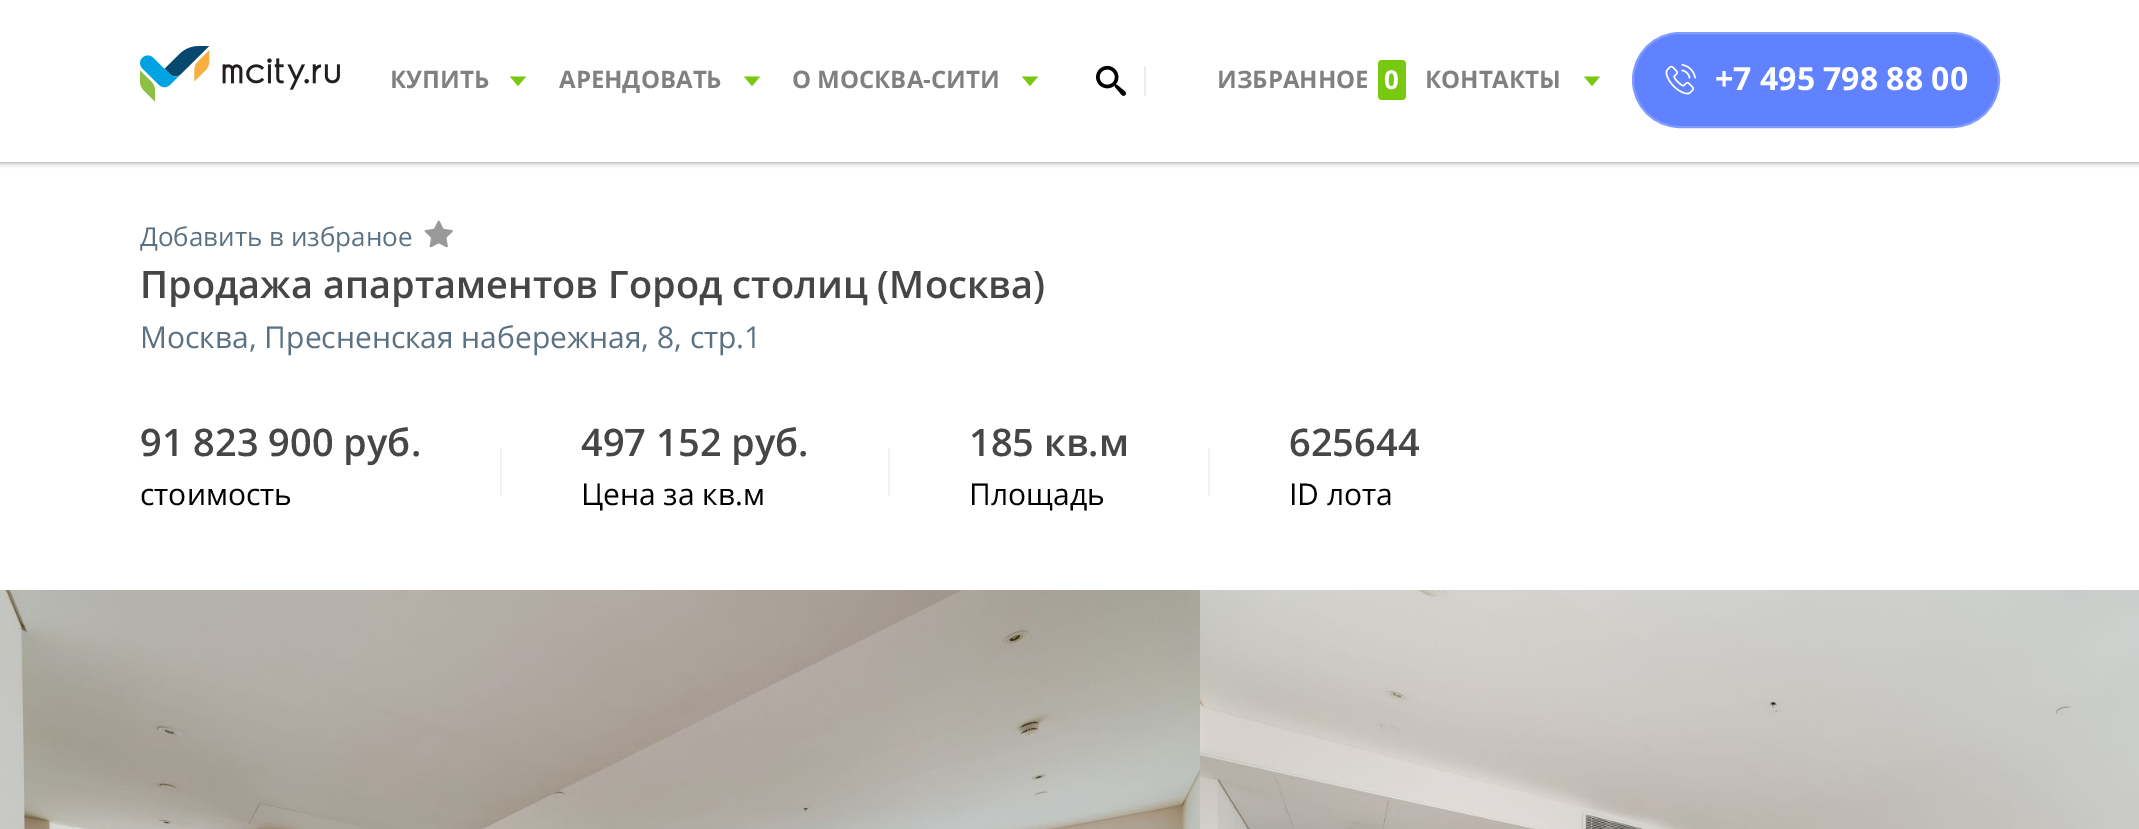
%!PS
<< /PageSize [2139 829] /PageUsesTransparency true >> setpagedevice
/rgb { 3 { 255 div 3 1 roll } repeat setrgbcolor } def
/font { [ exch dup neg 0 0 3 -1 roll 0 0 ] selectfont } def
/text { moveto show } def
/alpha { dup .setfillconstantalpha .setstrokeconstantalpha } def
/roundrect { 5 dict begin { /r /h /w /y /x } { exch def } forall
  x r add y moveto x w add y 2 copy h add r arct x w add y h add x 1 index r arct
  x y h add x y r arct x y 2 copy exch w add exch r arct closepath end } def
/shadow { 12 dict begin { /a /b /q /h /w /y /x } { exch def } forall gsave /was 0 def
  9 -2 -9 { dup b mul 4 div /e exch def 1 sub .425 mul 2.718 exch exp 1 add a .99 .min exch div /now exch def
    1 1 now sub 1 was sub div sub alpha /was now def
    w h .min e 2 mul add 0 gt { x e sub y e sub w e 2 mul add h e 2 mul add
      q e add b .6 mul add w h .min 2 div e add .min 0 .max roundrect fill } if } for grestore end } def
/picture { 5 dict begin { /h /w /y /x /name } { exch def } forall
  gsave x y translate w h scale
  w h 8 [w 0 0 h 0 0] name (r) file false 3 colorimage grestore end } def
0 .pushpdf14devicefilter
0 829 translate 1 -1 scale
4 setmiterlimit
255 255 255 rgb
0 0 2139 829 rectfill
0 0 0 rgb
0 0 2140 162 0 3 0.5 shadow
255 255 255 rgb
0 0 2139 162 rectfill
(img_01.rgb) 140 46 200 56 picture
120 200 16 rgb
518 86 moveto -8 -9.5 rlineto 16 0 rlineto closepath fill
752 86 moveto -8 -9.5 rlineto 16 0 rlineto closepath fill
1030 86 moveto -8 -9.5 rlineto 16 0 rlineto closepath fill
(img_02.rgb) 1096 65 30 31 picture
237 237 237 rgb
1144 66 2 30 rectfill
120 200 16 rgb
1378 60 28 40 4 roundrect fill
1592 86 moveto -8 -9.5 rlineto 16 0 rlineto closepath fill
96 130 255 rgb
1633 33 366 94 47 roundrect gsave fill grestore
129 156 255 rgb
2 setlinewidth
stroke
(img_03.rgb) 1665 64 31 31 picture
(img_04.rgb) 424 220 29 28 picture
242 242 242 rgb
500 448 2 48 rectfill
888 448 2 48 rectfill
1208 448 2 48 rectfill
(img_05.rgb) 0 590 1200 239 picture
(img_06.rgb) 1200 590 939 239 picture
/OpenSans-Bold 24 font
128 128 128 rgb
(КУПИТЬ) 390 88 text
(АРЕНДОВАТЬ) 559 88 text
(О МОСКВА-СИТИ) 792 88 text
(ИЗБРАННОЕ) 1217 88 text
/OpenSans-Bold 26 font
255 255 255 rgb
(0) 1384 89 text
/OpenSans-Bold 24 font
128 128 128 rgb
(КОНТАКТЫ) 1425 88 text
/OpenSans-Bold 32 font
255 255 255 rgb
(+7 495 798 88 00) 1715 90 text
/OpenSans-Regular 26 font
89 113 130 rgb
(Добавить в избраное) 140 246 text
/OpenSans-SemiBold 38 font
70 70 70 rgb
(Продажа апартаментов Город столиц \(Москва\)) 140 298 text
/OpenSans-Regular 30 font
89 113 130 rgb
(Москва, Пресненская набережная, 8, стр.1) 140 348 text
/OpenSans-SemiBold 38 font
70 70 70 rgb
(91 823 900 руб.) 140 456 text
/OpenSans-Regular 30 font
0 0 0 rgb
(стоимость) 140 505 text
/OpenSans-SemiBold 38 font
70 70 70 rgb
(497 152 руб.) 581 456 text
/OpenSans-Regular 30 font
0 0 0 rgb
(Цена за кв.м) 581 505 text
/OpenSans-SemiBold 38 font
70 70 70 rgb
(185 кв.м) 969 456 text
/OpenSans-Regular 30 font
0 0 0 rgb
(Площадь) 969 505 text
/OpenSans-SemiBold 38 font
70 70 70 rgb
(625644) 1289 456 text
/OpenSans-Regular 30 font
0 0 0 rgb
(ID лота) 1289 505 text
.poppdf14devicefilter showpage
